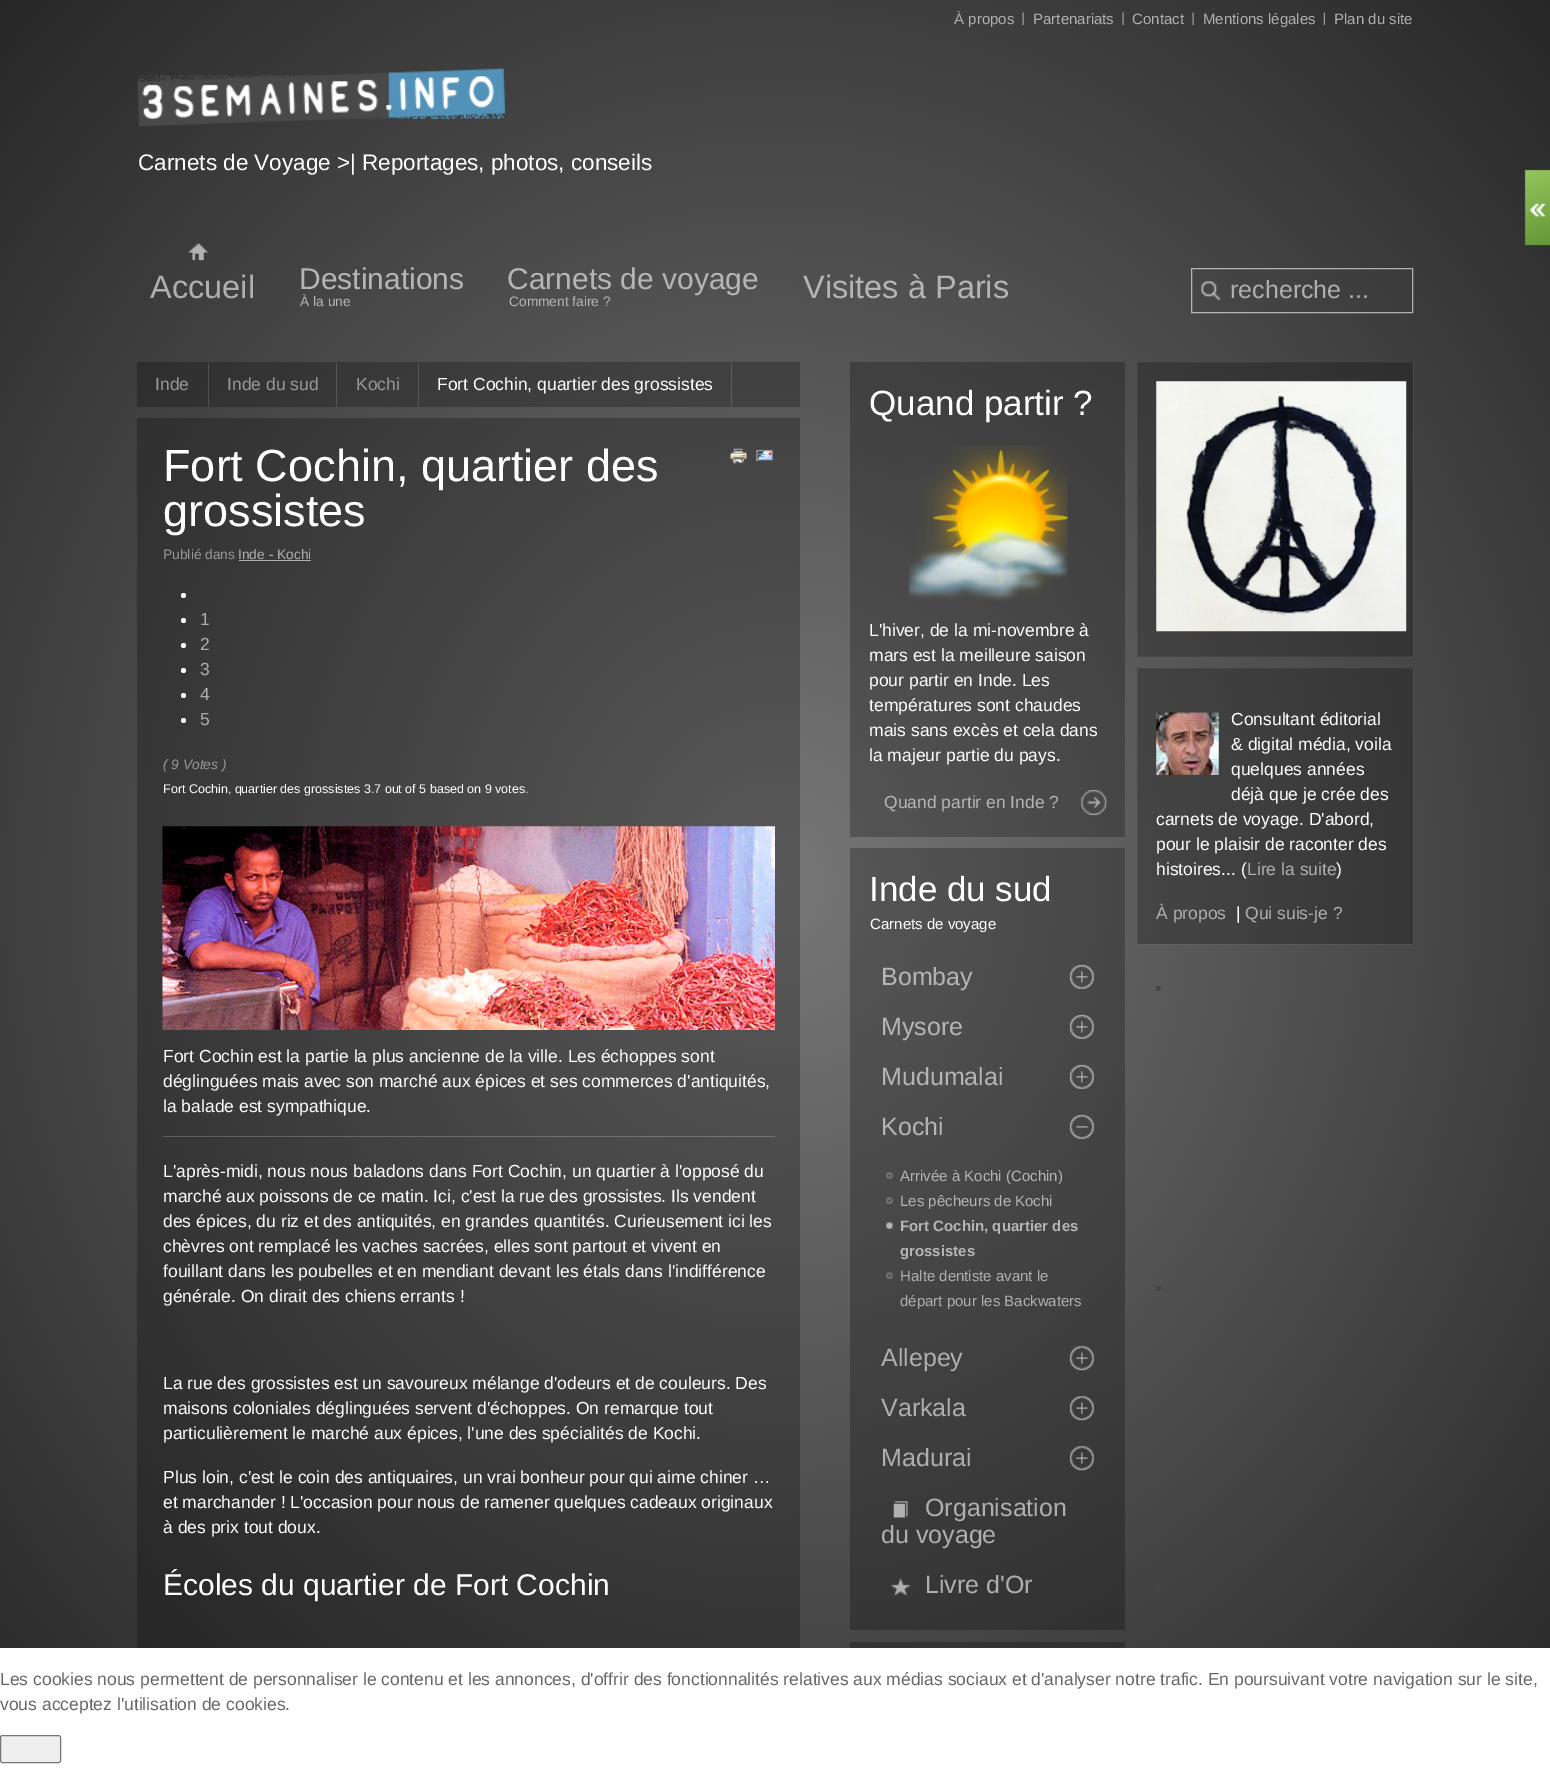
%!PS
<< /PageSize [1550 1768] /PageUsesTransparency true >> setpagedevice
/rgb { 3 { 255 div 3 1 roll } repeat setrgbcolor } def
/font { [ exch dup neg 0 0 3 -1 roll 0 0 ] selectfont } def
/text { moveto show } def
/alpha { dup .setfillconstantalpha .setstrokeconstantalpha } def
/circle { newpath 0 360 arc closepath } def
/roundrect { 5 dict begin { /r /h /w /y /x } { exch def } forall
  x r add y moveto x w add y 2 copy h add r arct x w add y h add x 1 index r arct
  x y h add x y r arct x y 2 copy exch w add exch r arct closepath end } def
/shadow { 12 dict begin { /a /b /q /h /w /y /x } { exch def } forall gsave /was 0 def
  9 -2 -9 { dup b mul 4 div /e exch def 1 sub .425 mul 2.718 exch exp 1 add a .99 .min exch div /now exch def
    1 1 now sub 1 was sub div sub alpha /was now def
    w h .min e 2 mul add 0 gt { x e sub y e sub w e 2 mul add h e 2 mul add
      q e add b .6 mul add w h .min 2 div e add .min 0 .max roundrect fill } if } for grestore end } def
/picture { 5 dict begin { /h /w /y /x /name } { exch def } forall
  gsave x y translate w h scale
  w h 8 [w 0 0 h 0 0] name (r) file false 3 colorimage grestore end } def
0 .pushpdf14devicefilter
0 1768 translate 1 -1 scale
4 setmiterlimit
255 255 255 rgb
0 0 1550 1768 rectfill
(img_01.rgb) 0 0 1550 1648 picture
(img_02.rgb) 1022 12 2 13 picture
(img_03.rgb) 1122 12 2 13 picture
(img_04.rgb) 1192 12 2 13 picture
(img_05.rgb) 1323 12 2 13 picture
(img_06.rgb) 137 68 368 59 picture
(img_07.rgb) 188 243 20 18 picture
0.6 alpha
1191.5 268.5 221 44 rectstroke
1 alpha
(img_08.rgb) 1201 281 20 20 picture
0.25 alpha
0 0 0 rgb
137 362 663 45 rectfill
1 alpha
81 81 81 rgb
208 363 1 43 rectfill
85 85 85 rgb
336 363 1 43 rectfill
88 88 88 rgb
418 363 1 43 rectfill
94 94 94 rgb
731 363 1 43 rectfill
0.25 alpha
0 0 0 rgb
137 418 663 1230 rectfill
1 alpha
(img_09.rgb) 729 448 19 16 picture
(img_10.rgb) 756 449 18 13 picture
0.6 alpha
255 255 255 rgb
239 560 72 1 rectfill
1 alpha
183.5 595.5 2.5 circle fill
183.5 620.5 2.5 circle fill
183.5 645.5 2.5 circle fill
183.5 670.5 2.5 circle fill
183.5 695.5 2.5 circle fill
183.5 720.5 2.5 circle fill
(img_11.rgb) 162 826 613 204 picture
0.2 alpha
163 1136 612 1 rectfill
0.25 alpha
0 0 0 rgb
850 362 275 475 rectfill
1 alpha
(img_12.rgb) 908 445 160 156 picture
(img_13.rgb) 1081 790 26 25 picture
0.25 alpha
850 848 275 782 rectfill
1 alpha
(img_14.rgb) 1069 964 25 25 picture
(img_15.rgb) 1069 1014 25 25 picture
(img_16.rgb) 1069 1064 25 25 picture
(img_17.rgb) 1069 1114 25 25 picture
(img_18.rgb) 886 1172 7 7 picture
(img_19.rgb) 886 1197 7 7 picture
(img_20.rgb) 886 1222 7 7 picture
(img_21.rgb) 886 1272 7 7 picture
(img_22.rgb) 1069 1346 25 25 picture
(img_23.rgb) 1069 1396 25 25 picture
(img_24.rgb) 1069 1446 25 25 picture
(img_25.rgb) 893 1501 15 17 picture
(img_26.rgb) 891 1578 20 18 picture
0.25 alpha
850 1642 275 6 rectfill
gsave
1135 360 moveto 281 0 rlineto 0 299 rlineto -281 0 rlineto closepath 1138 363 moveto 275 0 rlineto 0 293 rlineto -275 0 rlineto closepath eoclip newpath
1 alpha
255 255 255 rgb
1138 363 275 293 0 0.5 0.2 shadow
grestore
1137 362 276 295 rectfill
1 alpha
(img_27.rgb) 1156 381 251 251 picture
gsave
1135 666 moveto 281 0 rlineto 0 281 rlineto -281 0 rlineto closepath 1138 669 moveto 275 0 rlineto 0 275 rlineto -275 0 rlineto closepath eoclip newpath
255 255 255 rgb
1138 669 275 275 0 0.5 0.2 shadow
grestore
0.25 alpha
1137 668 276 276 rectfill
1 alpha
(img_28.rgb) 1156 712 63 63 picture
68 68 68 rgb
1158.5 988.5 2.5 circle fill
1158.5 1288.5 2.5 circle fill
1158.5 1588.5 2.5 circle fill
(img_29.rgb) 1524 169 26 77 picture
239 239 239 rgb
0.5 1735.5 60 27 2 roundrect gsave fill grestore
118 118 118 rgb
stroke
/LiberationSans-Regular 15 font
175 175 175 rgb
(À propos) 954 24 text
(Partenariats) 1033 24 text
(Contact) 1132 24 text
(Mentions légales) 1203 24 text
(Plan du site) 1334 24 text
/LiberationSans-Regular 22.5 font
255 255 255 rgb
(Carnets de Voyage >| Reportages, photos, conseils) 138 170 text
/LiberationSans-Regular 32.5 font
175 175 175 rgb
(Accueil) 150 298 text
/LiberationSans-Regular 30 font
181 181 181 rgb
(Destinations) 299 289 text
/LiberationSans-Regular 13.75 font
(À la une) 300 306 text
/LiberationSans-Regular 30 font
(Carnets de voyage) 507 289 text
/LiberationSans-Regular 13.75 font
(Comment faire ?) 509 306 text
/LiberationSans-Regular 32.5 font
(Visites à Paris) 803 298 text
/LiberationSans-Regular 25 font
175 175 175 rgb
(recherche ...) 1230 298 text
/LiberationSans-Regular 17.5 font
153 153 153 rgb
(Inde) 155 390 text
(Inde du sud) 227 390 text
(Kochi) 356 390 text
255 255 255 rgb
(Fort Cochin, quartier des grossistes) 437 390 text
/LiberationSans-Regular 45 font
(Fort Cochin, quartier des) 163 481 text
(grossistes) 163 526 text
/LiberationSans-Regular 13.75 font
153 153 153 rgb
(Publié dans) 163 559 text
175 175 175 rgb
(Inde - Kochi) 238 559 text
/LiberationSans-Regular 17.5 font
(1) 200 625 text
(2) 200 650 text
(3) 200 675 text
(4) 200 700 text
(5) 200 725 text
/LiberationSans-Italic 13.75 font
153 153 153 rgb
(\( 9 Votes \)) 163 769 text
/LiberationSans-Regular 12.5 font
255 255 255 rgb
(Fort Cochin, quartier des grossistes 3.7 out of 5 based on 9 votes.) 163 793 text
/LiberationSans-Regular 17.5 font
(Fort Cochin est la partie la plus ancienne de la ville. Les échoppes sont) 163 1062 text
(déglinguées mais avec son marché aux épices et ses commerces d'antiquités,) 163 1087 text
(la balade est sympathique.) 163 1112 text
(L'après-midi, nous nous baladons dans Fort Cochin, un quartier à l'opposé du) 163 1177 text
(marché aux poissons de ce matin. Ici, c'est la rue des grossistes. Ils vendent) 163 1202 text
(des épices, du riz et des antiquités, en grandes quantités. Curieusement ici les) 163 1227 text
(chèvres ont remplacé les vaches sacrées, elles sont partout et vivent en) 163 1252 text
(fouillant dans les poubelles et en mendiant devant les étals dans l'indifférence) 163 1277 text
(générale. On dirait des chiens errants !) 163 1302 text
(La rue des grossistes est un savoureux mélange d'odeurs et de couleurs. Des) 163 1389 text
(maisons coloniales déglinguées servent d'échoppes. On remarque tout) 163 1414 text
(particulièrement le marché aux épices, l'une des spécialités de Kochi.) 163 1439 text
(Plus loin, c'est le coin des antiquaires, un vrai bonheur pour qui aime chiner …) 163 1483 text
(et marchander ! L'occasion pour nous de ramener quelques cadeaux originaux) 163 1508 text
(à des prix tout doux.) 163 1533 text
/LiberationSans-Regular 30 font
(Écoles du quartier de Fort Cochin) 163 1595 text
/LiberationSans-Regular 35 font
(Quand partir ?) 869 415 text
/LiberationSans-Regular 17.5 font
(L'hiver, de la mi-novembre à) 869 636 text
(mars est la meilleure saison) 869 661 text
(pour partir en Inde. Les) 869 686 text
(températures sont chaudes) 869 711 text
(mais sans excès et cela dans) 869 736 text
(la majeur partie du pays.) 869 761 text
181 181 181 rgb
(Quand partir en Inde ?) 884 808 text
/LiberationSans-Regular 35 font
255 255 255 rgb
(Inde du sud) 869 901 text
/LiberationSans-Regular 15 font
(Carnets de voyage) 870 929 text
/LiberationSans-Regular 25 font
181 181 181 rgb
(Bombay) 881 985 text
(Mysore) 881 1035 text
(Mudumalai) 881 1085 text
(Kochi) 881 1135 text
/LiberationSans-Regular 15 font
(Arrivée à Kochi \(Cochin\)) 900 1181 text
(Les pêcheurs de Kochi) 900 1206 text
/LiberationSans-Bold 15 font
(Fort Cochin, quartier des) 900 1231 text
(grossistes) 900 1256 text
/LiberationSans-Regular 15 font
175 175 175 rgb
(Halte dentiste avant le) 900 1281 text
(départ pour les Backwaters) 900 1306 text
/LiberationSans-Regular 25 font
(Allepey) 881 1366 text
(Varkala) 881 1416 text
(Madurai) 881 1466 text
(Organisation) 925 1516 text
(du voyage) 881 1543 text
(Livre d'Or) 925 1593 text
/LiberationSans-Regular 17.5 font
255 255 255 rgb
(Consultant éditorial) 1231 725 text
(& digital média, voila) 1231 750 text
(quelques années) 1231 775 text
(déjà que je crée des) 1231 800 text
(carnets de voyage. D'abord,) 1156 825 text
(pour le plaisir de raconter des) 1156 850 text
(histoires... \() 1156 875 text
175 175 175 rgb
(Lire la suite) 1247 875 text
255 255 255 rgb
(\)) 1336 875 text
175 175 175 rgb
(À propos) 1156 919 text
255 255 255 rgb
(|) 1236 919 text
175 175 175 rgb
(Qui suis-je ?) 1245 919 text
102 102 102 rgb
(Les cookies nous permettent de personnaliser le contenu et les annonces, d'offrir des fonctionnalités relatives aux médias sociaux et d'analyser notre trafic. En poursuivant votre navigation sur le site,) 0 1685 text
(vous acceptez l'utilisation de cookies.) 0 1710 text
.poppdf14devicefilter showpage
